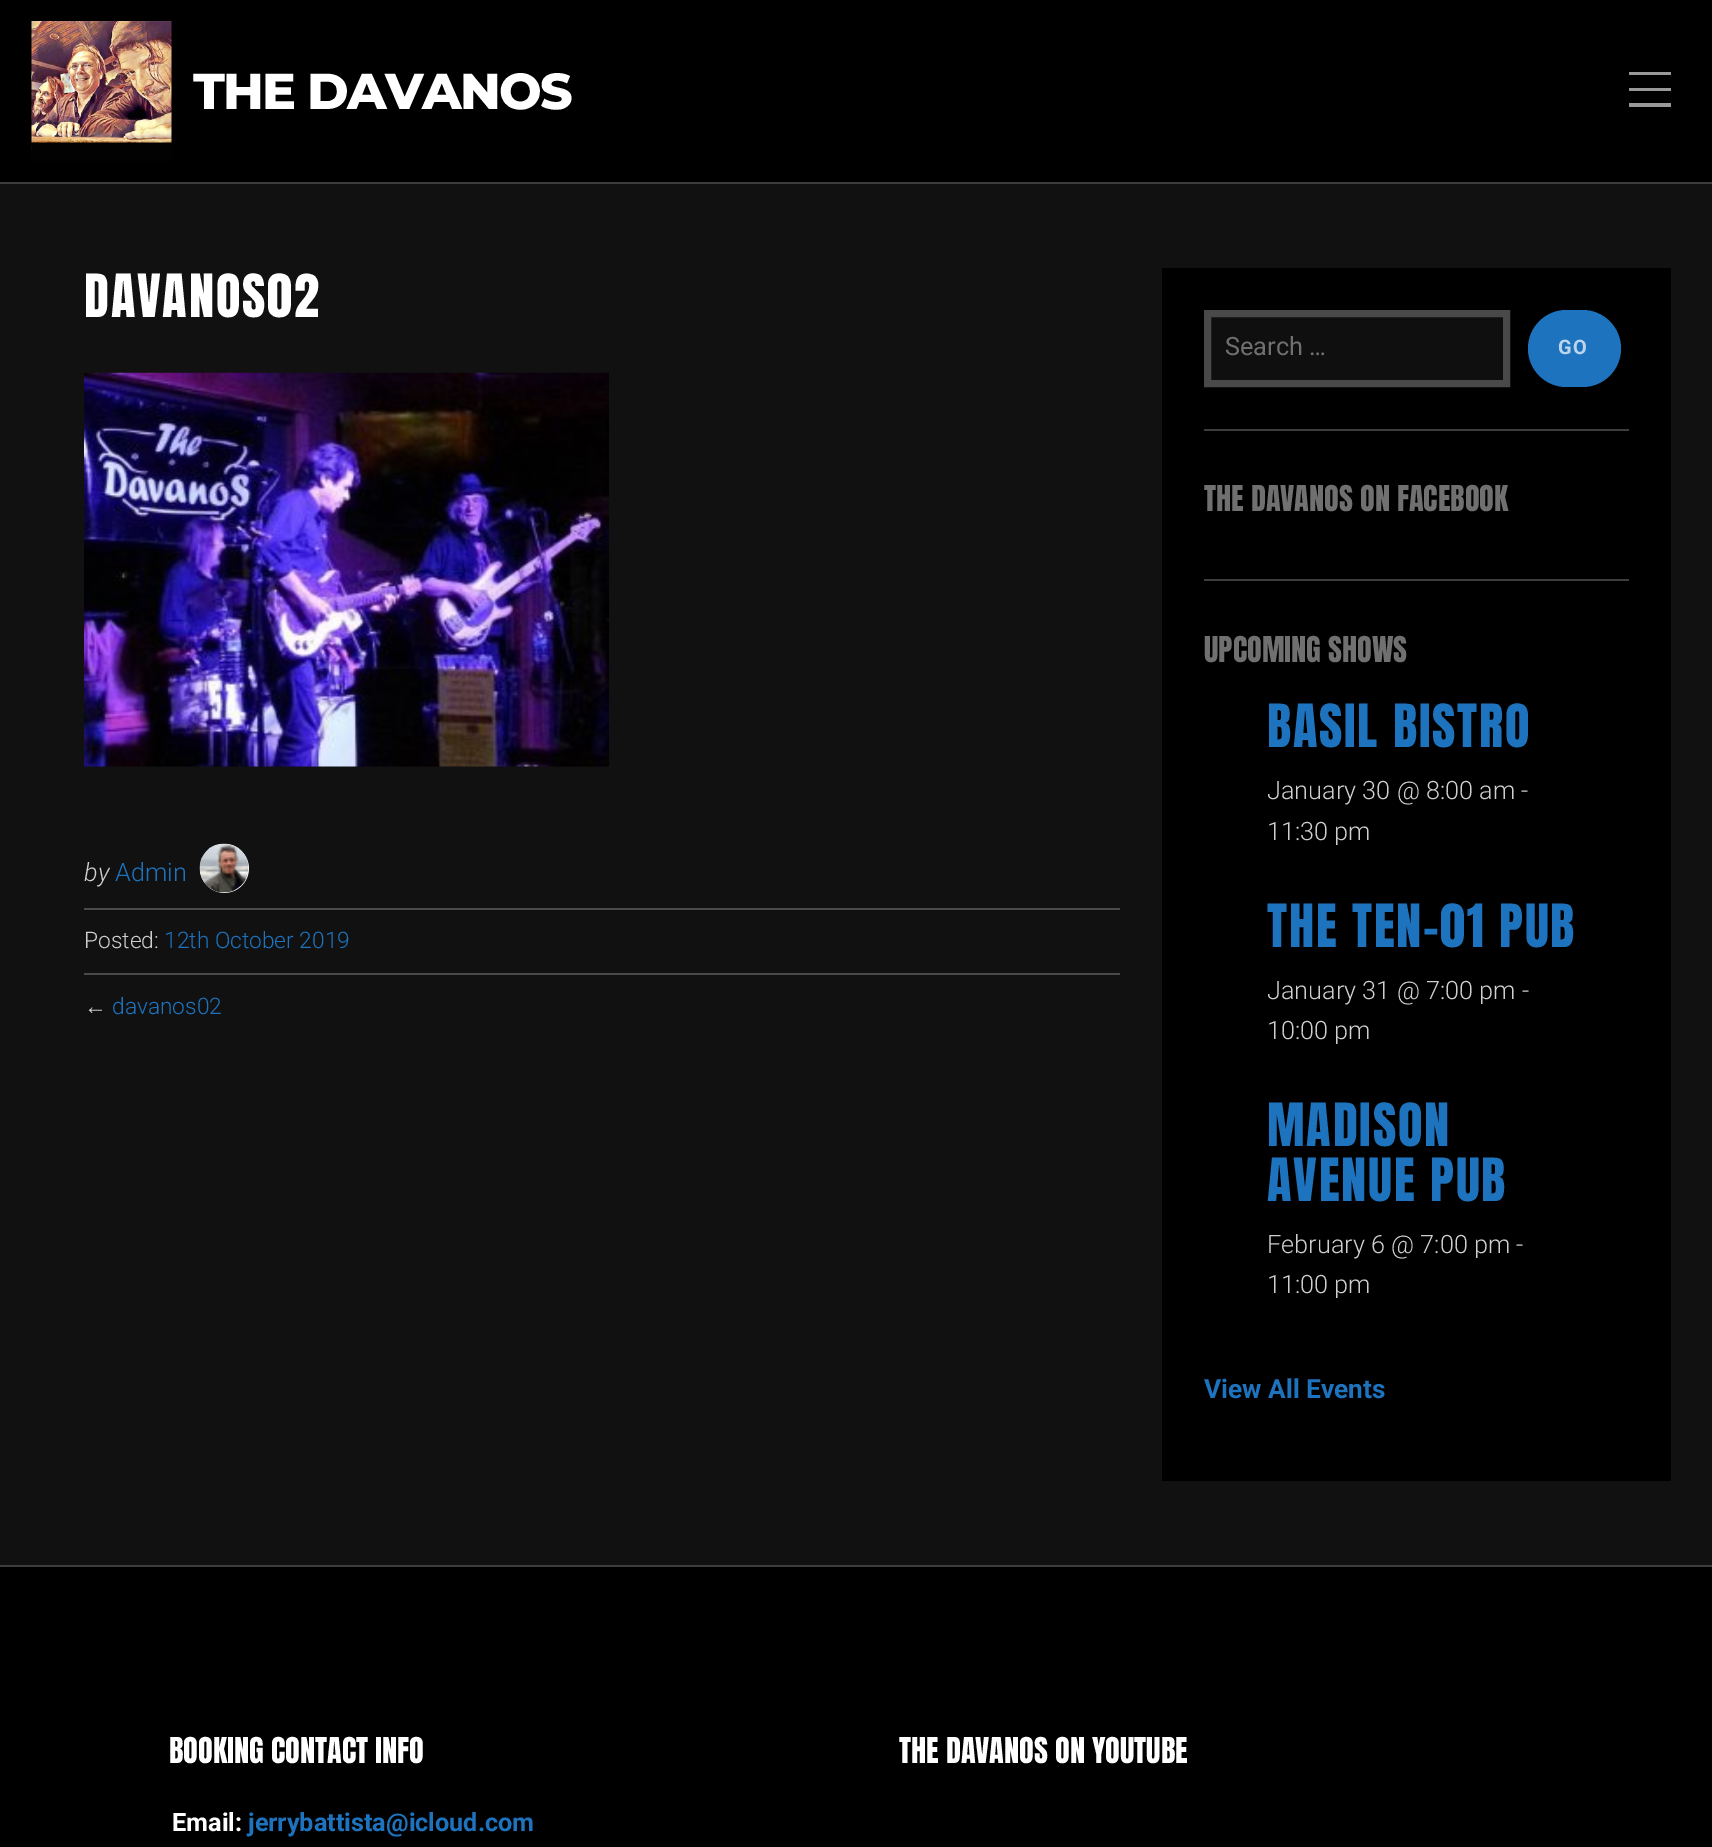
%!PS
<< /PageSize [1712 1847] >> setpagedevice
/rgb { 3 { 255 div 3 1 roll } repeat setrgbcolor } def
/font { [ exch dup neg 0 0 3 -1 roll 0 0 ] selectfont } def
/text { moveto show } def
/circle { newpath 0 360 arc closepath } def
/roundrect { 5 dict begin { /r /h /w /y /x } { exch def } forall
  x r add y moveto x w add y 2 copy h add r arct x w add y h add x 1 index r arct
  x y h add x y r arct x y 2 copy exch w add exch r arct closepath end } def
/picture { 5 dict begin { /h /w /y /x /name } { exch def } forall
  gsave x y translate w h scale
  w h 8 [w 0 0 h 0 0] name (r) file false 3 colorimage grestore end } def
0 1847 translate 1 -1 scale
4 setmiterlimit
17 17 17 rgb
0 0 1712 1847 rectfill
0 0 0 rgb
0 0 1712 182 rectfill
61 61 61 rgb
0 182 1712 2 rectfill
(img_01.rgb) 31 21 141 140 picture
153 153 153 rgb
1629 72 42 3 rectfill
1629 88 42 3 rectfill
1629 103 42 4 rectfill
(img_02.rgb) 84 372 525 395 picture
255 255 255 rgb
224.5 868.5 24.5 circle fill
(img_03.rgb) 199 843 50 50 picture
74 74 74 rgb
84 908 1036 2 rectfill
84 973 1036 2 rectfill
0 0 0 rgb
1162 268 509 1213 rectfill
61 61 61 rgb
1204 429 425 2 rectfill
15 15 15 rgb
1207.5 313.5 moveto 299 0 rlineto 0 70 rlineto -299 0 rlineto closepath gsave fill grestore
73 73 73 rgb
7 setlinewidth
stroke
30 115 190 rgb
1528 310 93 77 38.5 roundrect fill
61 61 61 rgb
1204 579 425 2 rectfill
0 0 0 rgb
0 1567 1712 280 rectfill
61 61 61 rgb
0 1565 1712 2 rectfill
/Montserrat-ExtraBold 50.5 font
255 255 255 rgb
193 109 moveto -1.75 0 (THE DAVANOS) ashow
/Anton-Regular 50.5 font
84 317 moveto 1.75 0 (DAVANOS02) ashow
/Roboto-LightItalic 25.25 font
207 207 207 rgb
(by) 84 881 text
/Roboto-Light 25.25 font
30 115 190 rgb
(Admin) 115 881 text
/Roboto-Light 22.75 font
207 207 207 rgb
(Posted:) 84 948 text
30 115 190 rgb
(12th October 2019) 164 948 text
/LiberationSerif-Regular 22.75 font
207 207 207 rgb
(←) 84 1014 text
/Roboto-Light 22.75 font
30 115 190 rgb
(davanos02) 112 1014 text
/Roboto-Regular 25.25 font
112 112 112 rgb
(Search …) 1225 355 text
/Roboto-Bold 20 font
188 213 236 rgb
1558 354 moveto 1.75 0 (GO) ashow
/Anton-Regular 30.25 font
112 112 112 rgb
(THE DAVANOS ON FACEBOOK) 1204 511 text
(UPCOMING SHOWS) 1204 662 text
/Anton-Regular 50.5 font
30 115 190 rgb
1267 747 moveto 1.75 0 (BASIL BISTRO) ashow
/Roboto-Light 25.25 font
207 207 207 rgb
(January 30 @ 8:00 am -) 1267 799 text
(11:30 pm) 1267 840 text
/Anton-Regular 50.5 font
30 115 190 rgb
1267 947 moveto 1.75 0 (THE TEN-01 PUB) ashow
/Roboto-Light 25.25 font
207 207 207 rgb
(January 31 @ 7:00 pm -) 1267 999 text
(10:00 pm) 1267 1039 text
/Anton-Regular 50.5 font
30 115 190 rgb
1267 1146 moveto 1.75 0 (MADISON) ashow
1267 1201 moveto 1.75 0 (AVENUE PUB) ashow
/Roboto-Light 25.25 font
207 207 207 rgb
(February 6 @ 7:00 pm -) 1267 1253 text
(11:00 pm) 1267 1293 text
/Roboto-Bold 26.25 font
30 115 190 rgb
(View All Events) 1204 1398 text
/Anton-Regular 30.25 font
255 255 255 rgb
(BOOKING CONTACT INFO) 169 1763 text
/Roboto-Bold 25.25 font
(Email:) 172 1831 text
30 115 190 rgb
(jerrybattista@icloud.com) 248 1831 text
/Anton-Regular 30.25 font
255 255 255 rgb
(THE DAVANOS ON YOUTUBE) 899 1763 text
showpage
